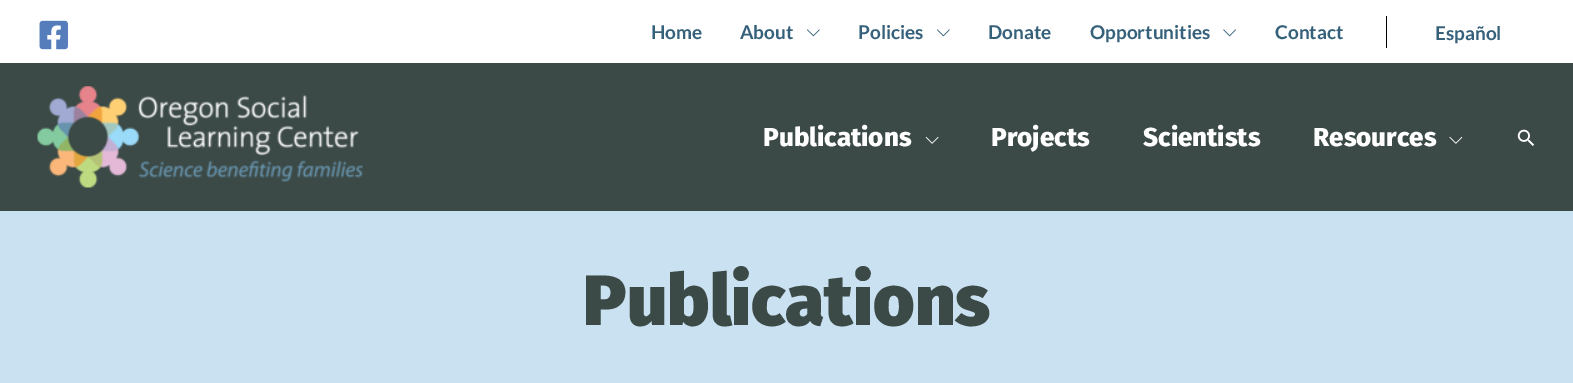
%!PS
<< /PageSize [1573 383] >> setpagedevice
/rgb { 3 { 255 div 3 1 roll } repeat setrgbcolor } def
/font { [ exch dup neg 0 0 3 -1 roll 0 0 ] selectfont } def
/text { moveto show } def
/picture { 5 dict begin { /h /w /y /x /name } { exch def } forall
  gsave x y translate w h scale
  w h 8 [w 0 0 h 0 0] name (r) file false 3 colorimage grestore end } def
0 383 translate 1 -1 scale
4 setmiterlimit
255 255 255 rgb
0 0 1573 383 rectfill
(img_01.rgb) 39 20 29 30 picture
(img_02.rgb) 807 29 13 8 picture
(img_02.rgb) 937 29 13 8 picture
(img_03.rgb) 1223 29 13 8 picture
0 0 0 rgb
1386 16 1 32 rectfill
60 74 71 rgb
0 63 1573 148 rectfill
(img_04.rgb) 37 86 326 102 picture
(img_05.rgb) 925 136 14 8 picture
(img_06.rgb) 1449 136 14 8 picture
(img_07.rgb) 1517 129 18 17 picture
201 225 240 rgb
0 211 1573 172 rectfill
/Lato-Bold 19 font
53 97 123 rgb
(Home) 651 39 text
(About) 740 39 text
(Policies) 858 39 text
(Donate) 988 39 text
(Opportunities) 1090 39 text
(Contact) 1275 39 text
(Español) 1435 40 text
/FiraSans-ExtraBold 26 font
255 255 255 rgb
(Publications) 763 146 text
(Projects) 991 146 text
(Scientists) 1143 146 text
(Resources) 1313 146 text
/FiraSans-Black 71.25 font
60 74 71 rgb
(Publications) 583 325 text
showpage
